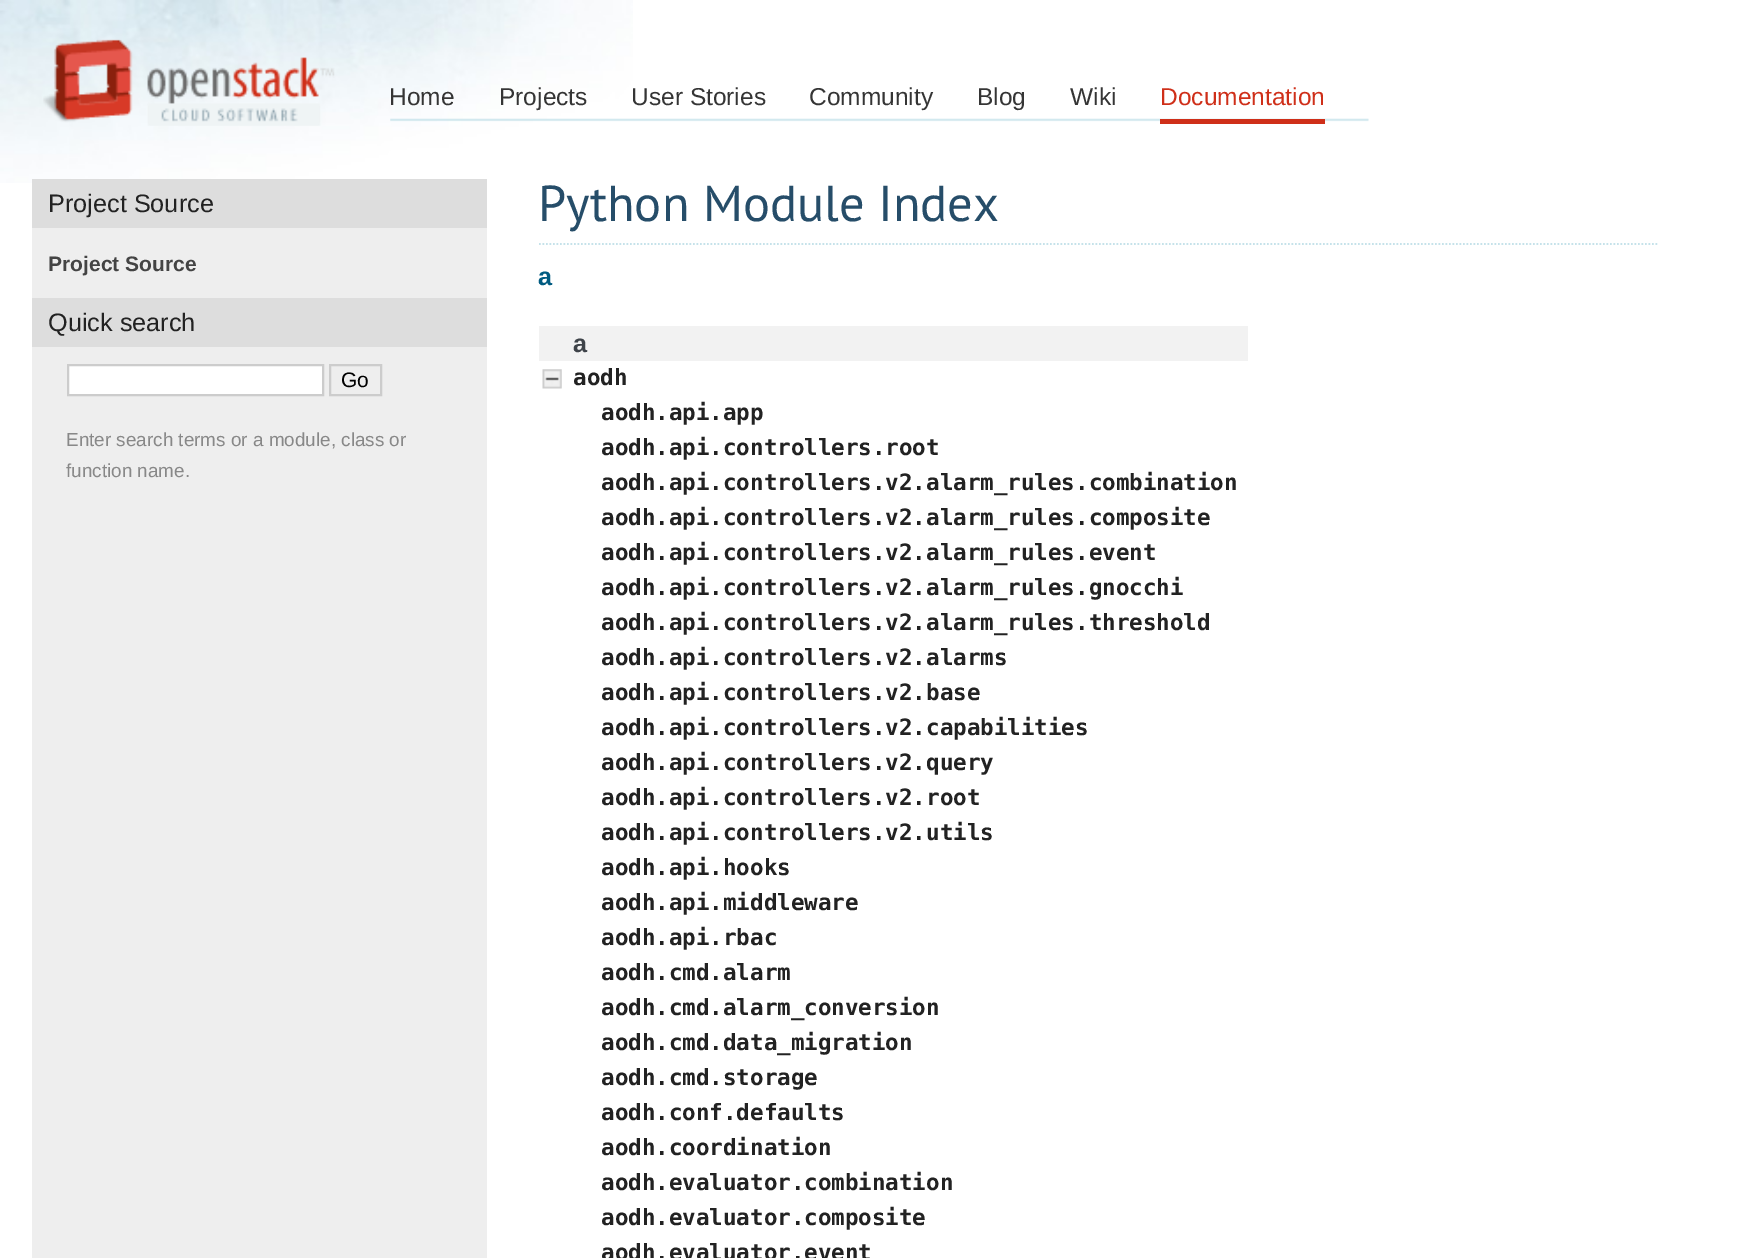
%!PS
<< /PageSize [1740 1258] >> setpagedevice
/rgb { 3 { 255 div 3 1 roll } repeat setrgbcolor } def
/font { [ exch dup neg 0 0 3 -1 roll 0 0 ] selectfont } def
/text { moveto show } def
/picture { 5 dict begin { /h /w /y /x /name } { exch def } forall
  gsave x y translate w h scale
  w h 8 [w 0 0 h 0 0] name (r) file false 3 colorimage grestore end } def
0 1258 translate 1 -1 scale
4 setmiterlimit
255 255 255 rgb
0 0 1740 1258 rectfill
(img_01.rgb) 0 0 633 183 picture
(img_02.rgb) 43 39 292 87 picture
(img_03.rgb) 390 118 979 4 picture
207 47 25 rgb
1160 119 165 5 rectfill
238 238 238 rgb
32 228 455 1030 rectfill
221 221 221 rgb
32 179 455 49 rectfill
32 298 455 49 rectfill
255 255 255 rgb
68 365 moveto 255 0 rlineto 0 30 rlineto -255 0 rlineto closepath gsave fill grestore
204 204 204 rgb
2 setlinewidth
stroke
330 365 51 30 rectstroke
197 226 234 rgb
1.8 setlinewidth
[1.75 1.75] 0 setdash
539 244 moveto 1120 0 rlineto stroke
242 242 242 rgb
539 326 709 35 rectfill
(img_04.rgb) 542 369 20 20 picture
/LiberationSans-Regular 24.5 font
53 53 53 rgb
(Home) 389 105 text
(Projects) 499 105 text
(User Stories) 631 105 text
(Community) 809 105 text
(Blog) 977 105 text
(Wiki) 1070 105 text
207 47 25 rgb
(Documentation) 1160 105 text
/LiberationSans-Regular 25.25 font
34 34 34 rgb
(Project Source) 48 212 text
/LiberationSans-Bold 21 font
68 68 68 rgb
(Project Source) 48 271 text
/LiberationSans-Regular 25.25 font
34 34 34 rgb
(Quick search) 48 331 text
/LiberationSans-Regular 21 font
0 0 0 rgb
(Go) 341 387 text
/LiberationSans-Regular 18.9 font
136 136 136 rgb
(Enter search terms or a module, class or) 66 446 text
(function name.) 66 477 text
/PTSans-Regular 50.5 font
38 77 105 rgb
(Python Module Index) 538 221 text
/LiberationSans-Bold 25.25 font
0 91 129 rgb
(a) 538 285 text
62 67 73 rgb
(a) 573 352 text
/DejaVuSansMono-Bold 22.5 font
34 34 34 rgb
(aodh) 573 385 text
(aodh.api.app) 601 420 text
(aodh.api.controllers.root) 601 455 text
(aodh.api.controllers.v2.alarm_rules.combination) 601 490 text
(aodh.api.controllers.v2.alarm_rules.composite) 601 525 text
(aodh.api.controllers.v2.alarm_rules.event) 601 560 text
(aodh.api.controllers.v2.alarm_rules.gnocchi) 601 595 text
(aodh.api.controllers.v2.alarm_rules.threshold) 601 630 text
(aodh.api.controllers.v2.alarms) 601 665 text
(aodh.api.controllers.v2.base) 601 700 text
(aodh.api.controllers.v2.capabilities) 601 735 text
(aodh.api.controllers.v2.query) 601 770 text
(aodh.api.controllers.v2.root) 601 805 text
(aodh.api.controllers.v2.utils) 601 840 text
(aodh.api.hooks) 601 875 text
(aodh.api.middleware) 601 910 text
(aodh.api.rbac) 601 945 text
(aodh.cmd.alarm) 601 980 text
(aodh.cmd.alarm_conversion) 601 1015 text
(aodh.cmd.data_migration) 601 1050 text
(aodh.cmd.storage) 601 1085 text
(aodh.conf.defaults) 601 1120 text
(aodh.coordination) 601 1155 text
(aodh.evaluator.combination) 601 1190 text
(aodh.evaluator.composite) 601 1225 text
(aodh.evaluator.event) 601 1260 text
showpage
